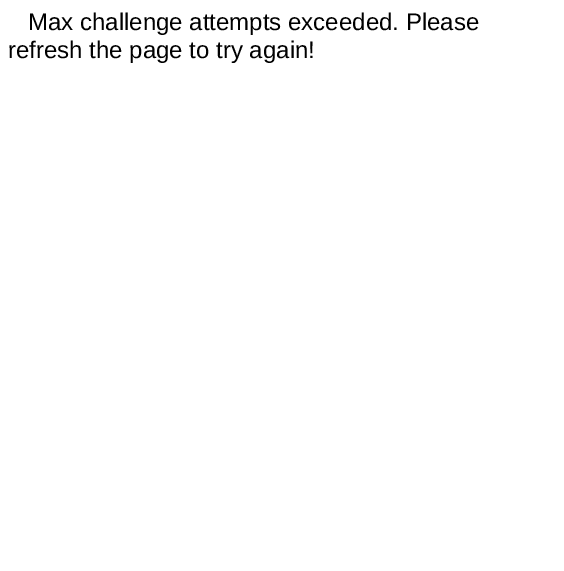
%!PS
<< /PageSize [564 571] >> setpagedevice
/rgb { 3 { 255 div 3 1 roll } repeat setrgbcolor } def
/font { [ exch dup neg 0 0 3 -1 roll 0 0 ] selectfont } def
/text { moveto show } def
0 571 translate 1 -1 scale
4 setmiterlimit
255 255 255 rgb
0 0 564 571 rectfill
/LiberationSans-Regular 24 font
0 0 0 rgb
(Max challenge attempts exceeded. Please) 28 30 text
(refresh the page to try again!) 8 58 text
showpage
